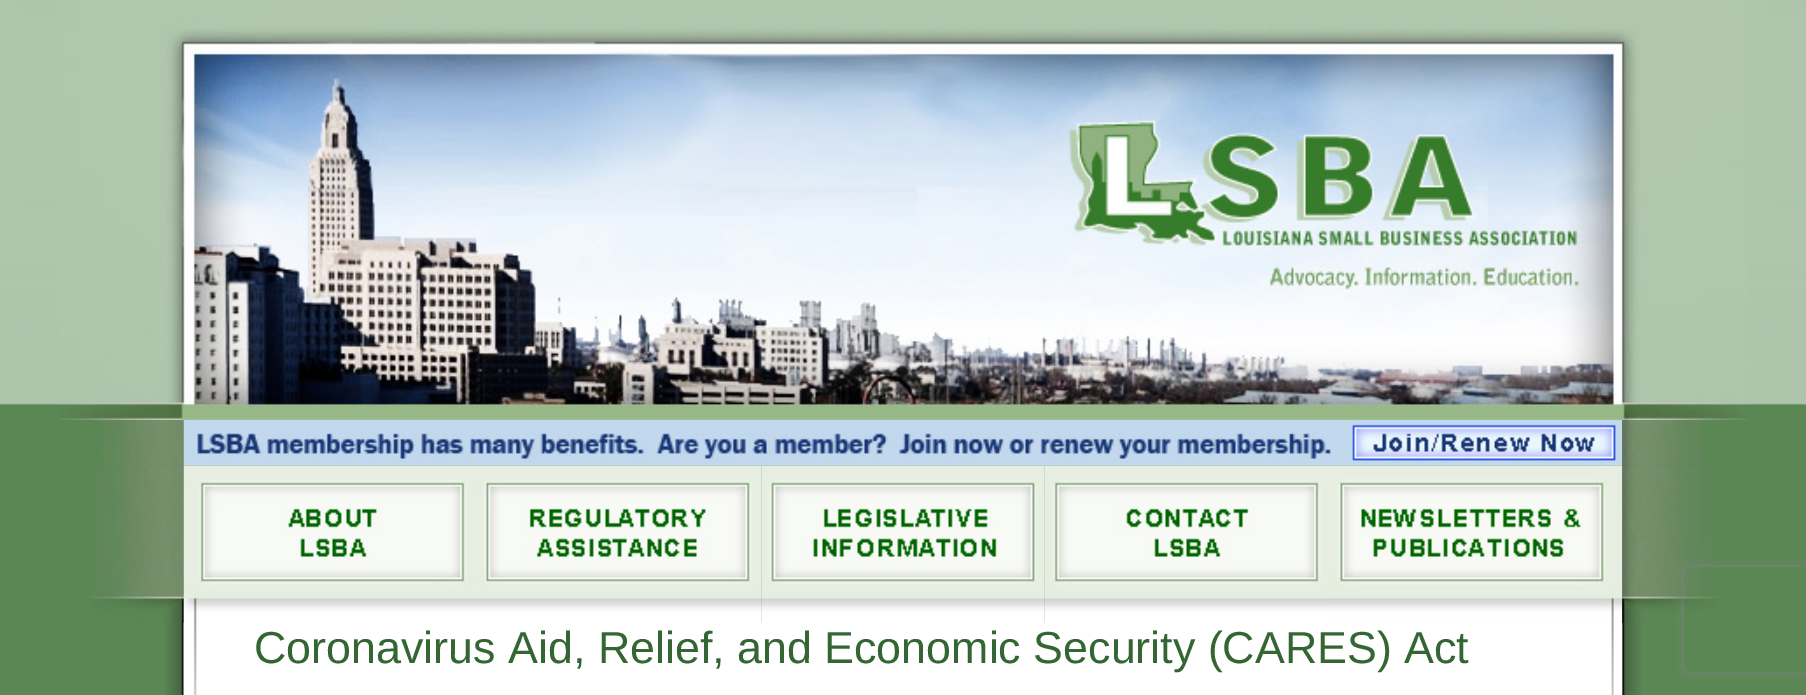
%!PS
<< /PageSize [1806 695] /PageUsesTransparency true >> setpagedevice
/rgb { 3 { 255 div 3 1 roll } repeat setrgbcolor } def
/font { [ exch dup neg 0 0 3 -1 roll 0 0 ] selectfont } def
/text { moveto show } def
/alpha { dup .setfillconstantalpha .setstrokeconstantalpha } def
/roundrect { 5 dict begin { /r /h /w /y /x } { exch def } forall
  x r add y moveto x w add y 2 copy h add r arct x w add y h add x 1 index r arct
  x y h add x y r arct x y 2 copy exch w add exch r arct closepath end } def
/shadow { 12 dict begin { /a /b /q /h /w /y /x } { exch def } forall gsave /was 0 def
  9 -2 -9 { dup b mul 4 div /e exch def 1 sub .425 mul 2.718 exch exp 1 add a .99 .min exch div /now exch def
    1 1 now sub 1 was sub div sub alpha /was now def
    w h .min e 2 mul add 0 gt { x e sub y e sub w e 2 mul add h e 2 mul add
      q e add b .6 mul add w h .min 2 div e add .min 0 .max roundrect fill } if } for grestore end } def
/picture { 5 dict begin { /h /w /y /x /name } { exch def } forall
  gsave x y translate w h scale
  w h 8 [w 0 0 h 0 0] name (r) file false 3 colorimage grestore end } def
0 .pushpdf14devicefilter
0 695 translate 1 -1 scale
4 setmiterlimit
91 135 84 rgb
0 0 1806 695 rectfill
(img_01.rgb) 0 0 1806 405 picture
(img_02.rgb) 59 0 1688 420 picture
(img_03.rgb) 101 420 83 46 picture
(img_04.rgb) 183 420 1440 46 picture
(img_05.rgb) 1622 420 83 46 picture
(img_06.rgb) 91 465 93 158 picture
(img_07.rgb) 183 465 293 158 picture
(img_08.rgb) 476 465 286 158 picture
(img_09.rgb) 761 465 284 158 picture
(img_10.rgb) 1044 465 286 158 picture
(img_11.rgb) 1330 465 293 158 picture
(img_12.rgb) 1622 465 95 158 picture
gsave
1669 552 moveto 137 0 rlineto 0 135 rlineto -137 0 rlineto closepath 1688 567 moveto 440 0 rlineto 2 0 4 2 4 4 rcurveto 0 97 rlineto 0 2 -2 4 -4 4 rcurveto -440 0 rlineto -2 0 -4 -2 -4 -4 rcurveto 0 -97 rlineto 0 -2 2 -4 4 -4 rcurveto closepath eoclip newpath
128 128 128 rgb
1684 567 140 105 4 4.5 1 shadow
grestore
(img_13.rgb) 165 623 1476 72 picture
255 255 255 rgb
1621 623 1 72 rectfill
(img_14.rgb) 183 623 1431 72 picture
/LiberationSans-Regular 44.8 font
52 102 51 rgb
(Coronavirus Aid, Relief, and Economic Security \(CARES\) Act) 254 663 text
.poppdf14devicefilter showpage
